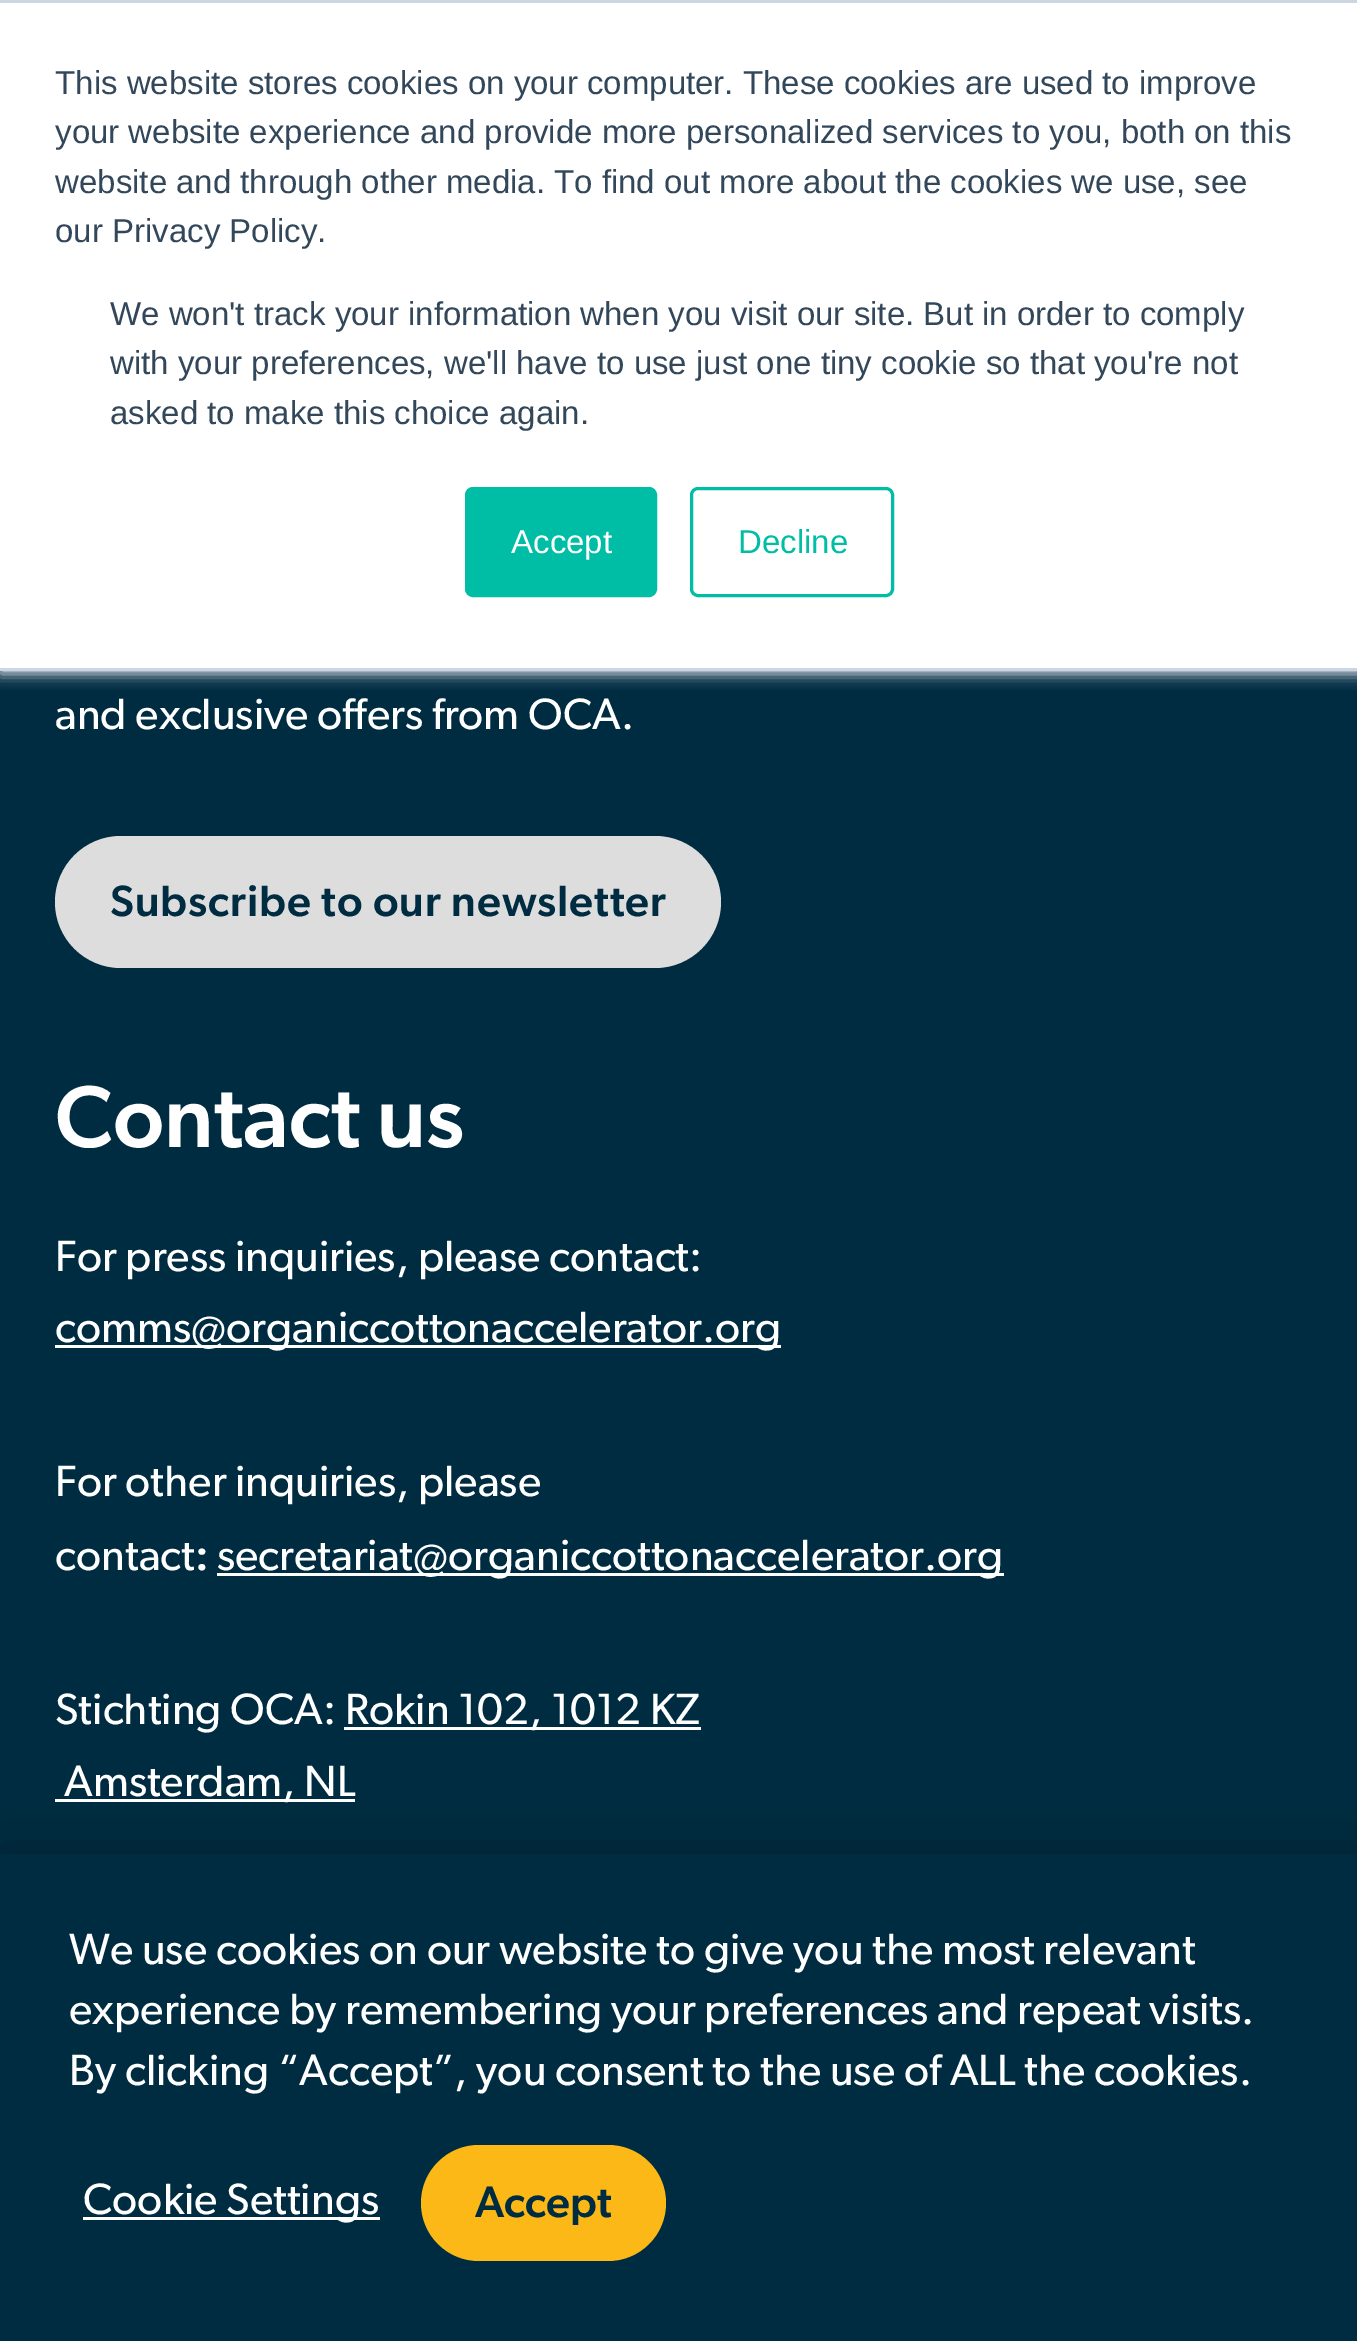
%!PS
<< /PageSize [1357 2341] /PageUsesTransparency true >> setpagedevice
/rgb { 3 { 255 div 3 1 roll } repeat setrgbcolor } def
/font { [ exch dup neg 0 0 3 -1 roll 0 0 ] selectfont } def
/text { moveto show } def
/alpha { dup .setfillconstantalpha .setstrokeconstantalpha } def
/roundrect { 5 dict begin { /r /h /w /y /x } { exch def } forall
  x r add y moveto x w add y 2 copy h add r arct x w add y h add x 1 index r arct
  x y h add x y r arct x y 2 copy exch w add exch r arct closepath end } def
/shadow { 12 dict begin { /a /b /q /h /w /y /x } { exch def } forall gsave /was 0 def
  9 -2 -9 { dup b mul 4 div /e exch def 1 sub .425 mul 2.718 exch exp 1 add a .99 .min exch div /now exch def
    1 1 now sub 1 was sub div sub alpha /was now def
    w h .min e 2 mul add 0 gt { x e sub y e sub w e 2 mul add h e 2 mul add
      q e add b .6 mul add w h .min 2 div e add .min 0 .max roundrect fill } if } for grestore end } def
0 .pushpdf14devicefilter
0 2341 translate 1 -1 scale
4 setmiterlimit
0 44 66 rgb
0 0 1357 2341 rectfill
234 240 246 rgb
0 3 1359 671 0 7 1 shadow
255 255 255 rgb
0 3 1357 665 rectfill
203 214 226 rgb
0 0 1357 3 rectfill
0 668 1357 3 rectfill
0 189 165 rgb
466.5 488.5 189 107 6.5 roundrect gsave fill grestore
3 setlinewidth
stroke
691.5 488.5 201 107 6.5 roundrect stroke
221 221 221 rgb
55 836 666 132 66 roundrect fill
255 255 255 rgb
55 1345 726 3 rectfill
217 1573 787 3 rectfill
344 1727 357 3 rectfill
55 1799 300 3 rectfill
0 0 0 rgb
0 1845 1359 490 0 20.5 0.2 shadow
0 44 66 rgb
0 1854 1357 487 rectfill
255 255 255 rgb
83 2217 297 3 rectfill
252 184 22 rgb
421 2145 245 116 58 roundrect fill
/LiberationSans-Regular 33 font
51 71 91 rgb
(This website stores cookies on your computer. These cookies are used to improve) 55 94 text
(your website experience and provide more personalized services to you, both on this) 55 143 text
(website and through other media. To find out more about the cookies we use, see) 55 193 text
(our Privacy Policy.) 55 242 text
(We won't track your information when you visit our site. But in order to comply) 110 325 text
(with your preferences, we'll have to use just one tiny cookie so that you're not) 110 374 text
(asked to make this choice again.) 110 424 text
255 255 255 rgb
(Accept) 511 553 text
0 189 165 rgb
(Decline) 738 553 text
/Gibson-Regular 44 font
255 255 255 rgb
(and exclusive offers from OCA.) 55 729 text
/Gibson-Medium 44 font
0 44 66 rgb
110 916 moveto 0.9 0 (Subscribe to our newsletter) ashow
/Gibson-Medium 88 font
255 255 255 rgb
(Contact us) 55 1147 text
/Gibson-Regular 44 font
(For press inquiries, please contact:) 55 1271 text
(comms@organiccottonaccelerator.org) 55 1342 text
(For other inquiries, please) 55 1496 text
(contact) 55 1570 text
/Gibson-Medium 44 font
(:) 195 1570 text
/Gibson-Regular 44 font
(secretariat@organiccottonaccelerator.org) 217 1570 text
(Stichting OCA:) 55 1724 text
(Rokin 102, 1012 KZ) 345 1724 text
(Amsterdam, NL) 64 1796 text
(We use cookies on our website to give you the most relevant) 69 1964 text
(experience by remembering your preferences and repeat visits.) 69 2024 text
(By clicking “Accept”, you consent to the use of ALL the cookies.) 69 2085 text
(Cookie Settings) 83 2214 text
/Gibson-Medium 44 font
0 44 66 rgb
(Accept) 475 2217 text
.poppdf14devicefilter showpage
